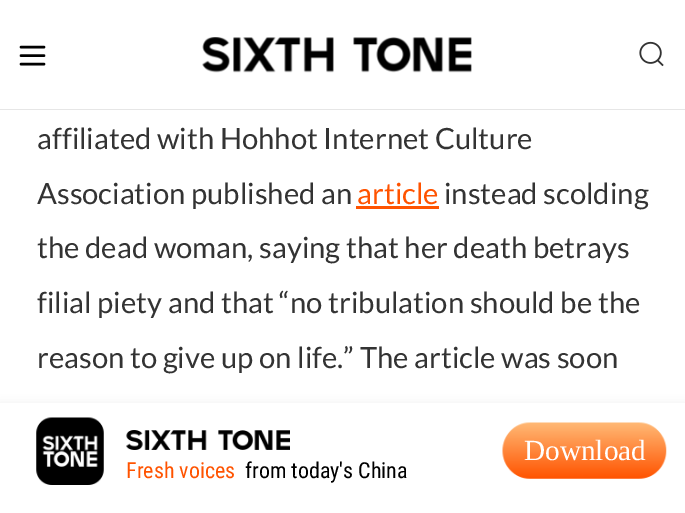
%!PS
<< /PageSize [685 513] /PageUsesTransparency true >> setpagedevice
/rgb { 3 { 255 div 3 1 roll } repeat setrgbcolor } def
/font { [ exch dup neg 0 0 3 -1 roll 0 0 ] selectfont } def
/text { moveto show } def
/alpha { dup .setfillconstantalpha .setstrokeconstantalpha } def
/roundrect { 5 dict begin { /r /h /w /y /x } { exch def } forall
  x r add y moveto x w add y 2 copy h add r arct x w add y h add x 1 index r arct
  x y h add x y r arct x y 2 copy exch w add exch r arct closepath end } def
/shadow { 12 dict begin { /a /b /q /h /w /y /x } { exch def } forall gsave /was 0 def
  9 -2 -9 { dup b mul 4 div /e exch def 1 sub .425 mul 2.718 exch exp 1 add a .99 .min exch div /now exch def
    1 1 now sub 1 was sub div sub alpha /was now def
    w h .min e 2 mul add 0 gt { x e sub y e sub w e 2 mul add h e 2 mul add
      q e add b .6 mul add w h .min 2 div e add .min 0 .max roundrect fill } if } for grestore end } def
/picture { 5 dict begin { /h /w /y /x /name } { exch def } forall
  gsave x y translate w h scale
  w h 8 [w 0 0 h 0 0] name (r) file false 3 colorimage grestore end } def
0 .pushpdf14devicefilter
0 513 translate 1 -1 scale
4 setmiterlimit
255 255 255 rgb
0 0 685 513 rectfill
230 230 230 rgb
0 109 685 1 rectfill
0 0 0 rgb
2.5 setlinewidth
1 setlinecap
21 47 moveto 23 0 rlineto 21 55.5 moveto 23 0 rlineto 21 64 moveto 23 0 rlineto stroke
(img_01.rgb) 202 37 270 36 picture
(img_02.rgb) 639 41 25 26 picture
255 83 0 rgb
356 206 83 3 rectfill
230 230 230 rgb
0 405 685 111 0 5 0.8 shadow
255 255 255 rgb
0 403 685 110 rectfill
(img_03.rgb) 502 422 165 57 picture
(img_04.rgb) 36 417 68 68 picture
(img_05.rgb) 126 430 164 20 picture
/Lato-Regular 29.25 font
51 51 51 rgb
(affiliated with Hohhot Internet Culture) 37 149 text
(Association published an) 37 204 text
255 83 0 rgb
(article) 357 204 text
51 51 51 rgb
(instead scolding) 444 204 text
(the dead woman, saying that her death betrays) 37 258 text
(filial piety and that “no tribulation should be the) 37 313 text
(reason to give up on life.” The article was soon) 37 368 text
/LiberationSerif-Regular 29.25 font
255 255 255 rgb
(Download) 524 460 text
/RobotoCondensed-Regular 22 font
255 83 0 rgb
(Fresh voices) 126 478 text
0 0 0 rgb
(from today's China) 245 478 text
.poppdf14devicefilter showpage
